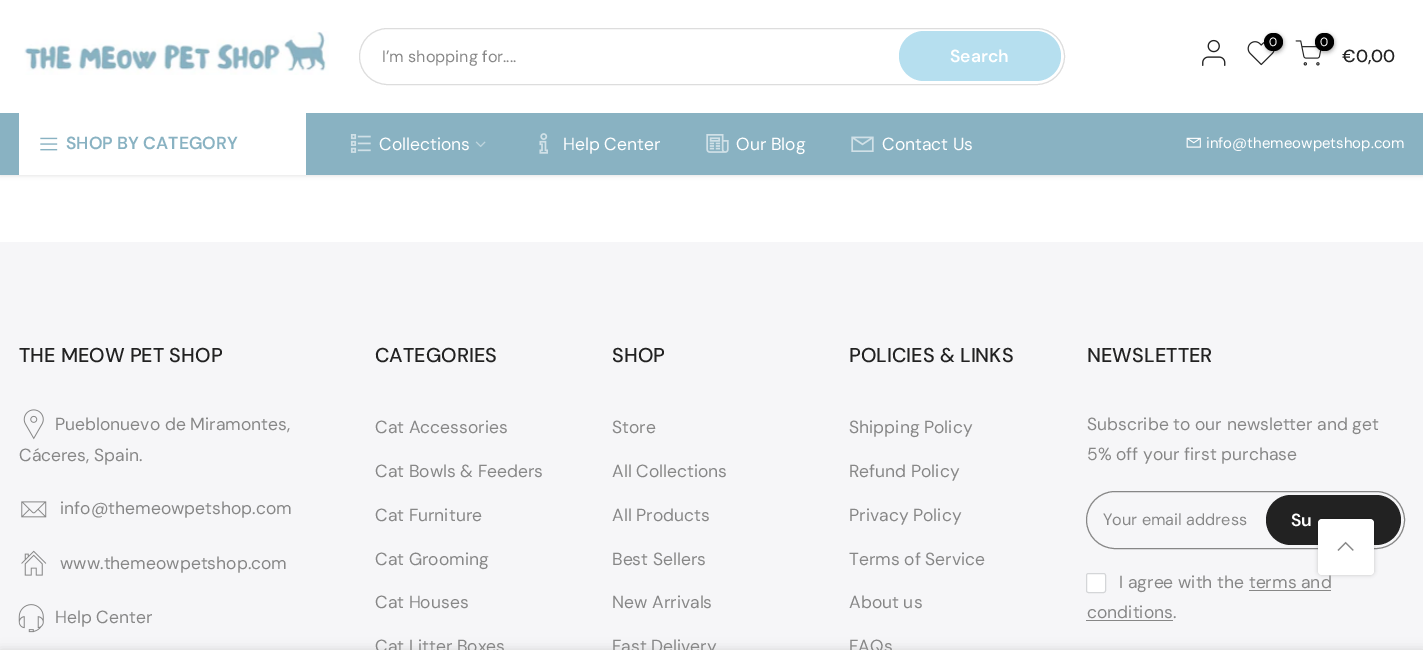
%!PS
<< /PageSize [1423 650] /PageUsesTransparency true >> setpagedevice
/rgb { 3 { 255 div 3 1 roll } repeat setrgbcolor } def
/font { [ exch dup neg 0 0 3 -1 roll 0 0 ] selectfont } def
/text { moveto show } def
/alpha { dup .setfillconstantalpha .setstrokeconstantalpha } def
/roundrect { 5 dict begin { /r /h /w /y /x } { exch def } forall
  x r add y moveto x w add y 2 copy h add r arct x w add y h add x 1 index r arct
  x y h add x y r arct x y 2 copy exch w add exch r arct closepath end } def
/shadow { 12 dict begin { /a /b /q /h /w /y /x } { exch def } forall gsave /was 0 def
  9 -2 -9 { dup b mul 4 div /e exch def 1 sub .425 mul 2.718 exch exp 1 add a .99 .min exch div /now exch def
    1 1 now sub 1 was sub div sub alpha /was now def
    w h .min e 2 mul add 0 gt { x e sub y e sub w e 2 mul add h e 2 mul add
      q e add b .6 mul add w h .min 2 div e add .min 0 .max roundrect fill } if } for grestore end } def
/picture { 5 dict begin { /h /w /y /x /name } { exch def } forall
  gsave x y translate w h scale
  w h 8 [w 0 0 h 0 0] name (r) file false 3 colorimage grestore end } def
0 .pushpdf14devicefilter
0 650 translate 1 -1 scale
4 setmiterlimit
255 255 255 rgb
0 0 1423 650 rectfill
0 0 0 rgb
0 1 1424 175 0 2 0.1 shadow
255 255 255 rgb
0 0 1423 113 rectfill
(img_01.rgb) 24 31 305 44 picture
221 221 221 rgb
359.5 28.5 705 56 28 roundrect stroke
182 223 239 rgb
899 31 162 50 25 roundrect fill
(img_02.rgb) 1202 39 24 27 picture
(img_03.rgb) 1247 41 28 25 picture
0 0 0 rgb
1265 34 19 19 9.5 2 0.3 shadow
1264 33 19 18 9 roundrect fill
(img_04.rgb) 1295 40 27 26 picture
1316 34 19 19 9.5 2 0.3 shadow
1315 33 19 18 9 roundrect fill
137 178 194 rgb
0 113 1423 62 rectfill
255 255 255 rgb
19 113 287 62 rectfill
(img_05.rgb) 40 137 18 14 picture
(img_06.rgb) 350 134 21 19 picture
(img_07.rgb) 475 141 11 6 picture
(img_08.rgb) 539 133 9 21 picture
(img_09.rgb) 706 134 23 19 picture
(img_10.rgb) 851 136 23 16 picture
(img_11.rgb) 1186 137 15 11 picture
246 246 248 rgb
0 242 1423 408 rectfill
(img_12.rgb) 23 409 21 31 picture
(img_13.rgb) 21 501 26 17 picture
(img_14.rgb) 21 550 26 26 picture
(img_15.rgb) 18 604 26 29 picture
135 135 135 rgb
1086.5 491.5 318 57 28.5 roundrect stroke
34 34 34 rgb
1266 495 135 50 25 roundrect fill
255 255 255 rgb
1086.5 573.5 19 19 2 roundrect gsave fill grestore
212 214 216 rgb
stroke
135 135 135 rgb
1249 590 82 1 rectfill
1086 620 87 1 rectfill
0 0 0 rgb
1318 519 56 56 4 2 0.2 shadow
255 255 255 rgb
1318 519 56 56 4 roundrect fill
(img_16.rgb) 1337 541 17 10 picture
0 0 0 rgb
0 650 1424 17 0 5.5 0.14 shadow
/DMSans-Regular 16.25 font
135 135 135 rgb
(I’m shopping for....) 382 62 text
/DMSans-SemiBold 17.5 font
255 255 255 rgb
(Search) 950 62 text
/DMSans-Regular 12 font
(0) 1269 46 text
(0) 1320 46 text
/DMSans-Medium 17.5 font
34 34 34 rgb
(€0,00) 1342 62 text
/DMSans-SemiBold 17.5 font
137 178 194 rgb
(SHOP BY CATEGORY) 66 149 text
/DMSans-Regular 17.5 font
255 255 255 rgb
(Collections) 379 150 text
(Help Center) 563 150 text
(Our Blog) 736 150 text
(Contact Us) 882 150 text
/DMSans-Regular 15 font
(info@themeowpetshop.com) 1206 148 text
/DMSans-Medium 20 font
34 34 34 rgb
(THE MEOW PET SHOP) 19 362 text
/DMSans-Regular 17.5 font
135 135 135 rgb
(Pueblonuevo de Miramontes,) 55 430 text
(Cáceres, Spain.) 19 461 text
(info@themeowpetshop.com) 60 514 text
(www.themeowpetshop.com) 60 569 text
(Help Center) 55 623 text
/DMSans-Medium 20 font
34 34 34 rgb
(CATEGORIES) 375 362 text
/DMSans-Regular 17.5 font
135 135 135 rgb
(Cat Accessories) 375 433 text
(Cat Bowls & Feeders) 375 477 text
(Cat Furniture) 375 521 text
(Cat Grooming) 375 565 text
(Cat Houses) 375 608 text
(Cat Litter Boxes) 375 652 text
/DMSans-Medium 20 font
34 34 34 rgb
(SHOP) 612 362 text
/DMSans-Regular 17.5 font
135 135 135 rgb
(Store) 612 433 text
(All Collections) 612 477 text
(All Products) 612 521 text
(Best Sellers) 612 565 text
(New Arrivals) 612 608 text
(Fast Delivery) 612 652 text
/DMSans-Medium 20 font
34 34 34 rgb
(POLICIES & LINKS) 849 362 text
/DMSans-Regular 17.5 font
135 135 135 rgb
(Shipping Policy) 849 433 text
(Refund Policy) 849 477 text
(Privacy Policy) 849 521 text
(Terms of Service) 849 565 text
(About us) 849 608 text
(FAQs) 849 652 text
/DMSans-Medium 20 font
34 34 34 rgb
(NEWSLETTER) 1087 362 text
/DMSans-Regular 17.5 font
135 135 135 rgb
(Subscribe to our newsletter and get) 1087 430 text
(5% off your first purchase) 1087 460 text
/DMSans-Regular 16.25 font
(Your email address) 1103 525 text
/DMSans-SemiBold 17.5 font
255 255 255 rgb
(Su) 1291 526 text
/DMSans-Regular 17.5 font
135 135 135 rgb
(I agree with the terms and) 1119 588 text
(conditions.) 1087 618 text
.poppdf14devicefilter showpage
